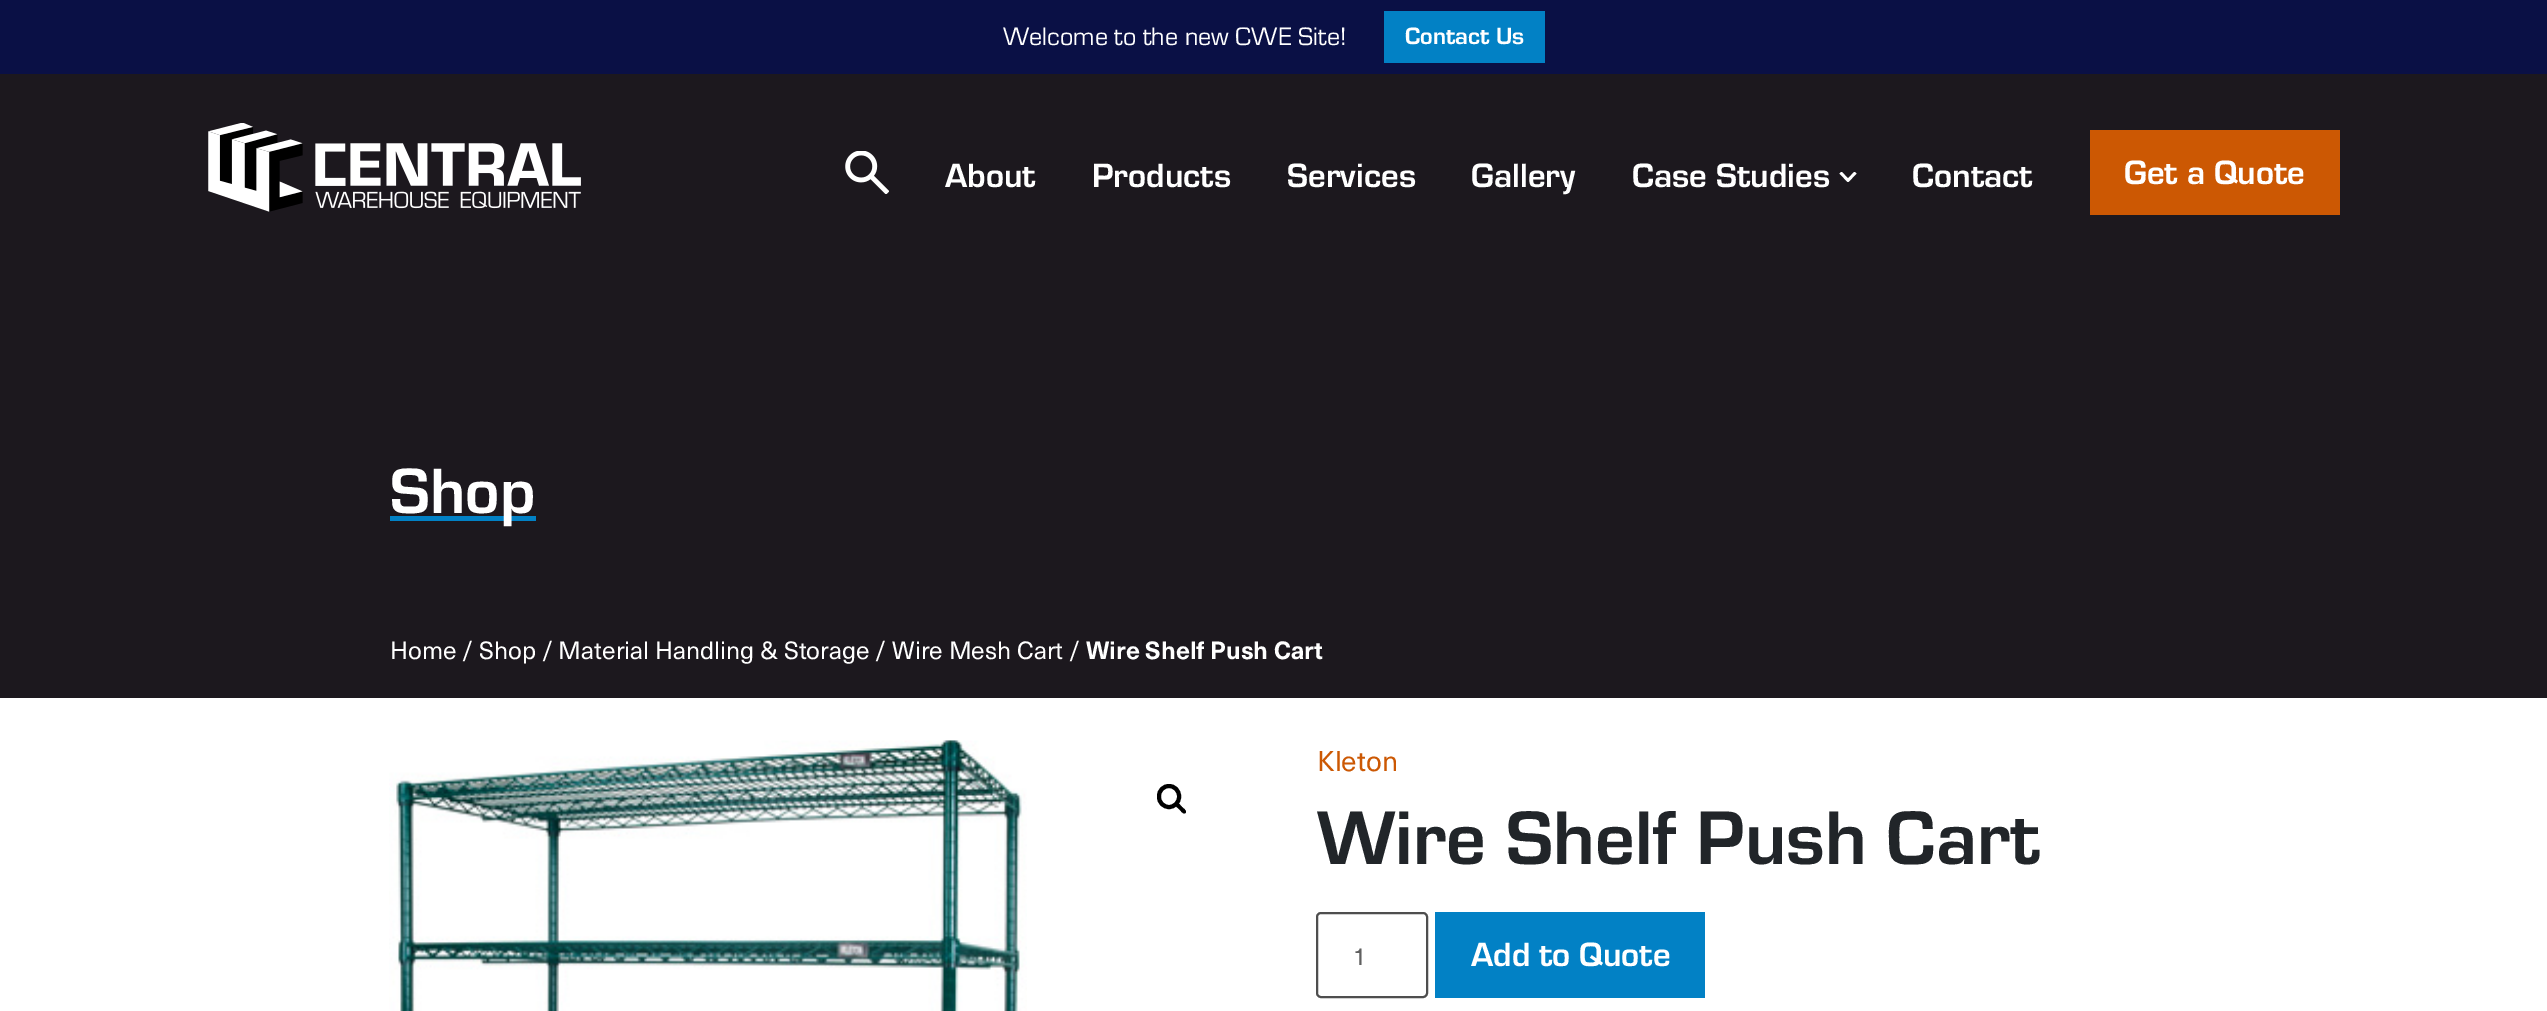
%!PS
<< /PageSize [2547 1011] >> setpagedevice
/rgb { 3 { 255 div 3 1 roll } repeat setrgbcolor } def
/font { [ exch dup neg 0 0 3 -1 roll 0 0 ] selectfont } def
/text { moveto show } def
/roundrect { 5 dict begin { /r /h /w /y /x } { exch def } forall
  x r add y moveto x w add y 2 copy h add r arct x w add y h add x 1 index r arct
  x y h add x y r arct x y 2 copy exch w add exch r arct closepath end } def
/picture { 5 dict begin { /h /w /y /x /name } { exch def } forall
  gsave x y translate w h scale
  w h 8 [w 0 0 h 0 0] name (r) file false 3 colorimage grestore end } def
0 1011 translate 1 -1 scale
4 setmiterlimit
255 255 255 rgb
0 0 2547 1011 rectfill
10 16 69 rgb
0 0 2547 74 rectfill
2 129 197 rgb
1384 11 161 52 rectfill
28 24 30 rgb
0 74 2547 624 rectfill
(img_01.rgb) 208 123 373 89 picture
(img_02.rgb) 845 151 44 43 picture
gsave
1839 172 18 10 rectclip
255 255 255 rgb
1848 182.5 moveto -8.5 -9 rlineto 2 -2 rlineto 6.5 7 rlineto 6.5 -7 rlineto 2 2 rlineto closepath fill
grestore
204 88 3 rgb
2090 130 250 85 rectfill
2 129 197 rgb
390 516 146 5 rectfill
(img_03.rgb) 389 740 638 271 picture
0 0 0 rgb
4 setlinewidth
1159 786 20 21 10 roundrect stroke
1175.5 803 moveto 2 -2 5.5 3 6.5 4 rcurveto 1 1 5.5 4 3.5 6 rcurveto -2 2 -5 -2.5 -6 -3.5 rcurveto -1 -1 -6 -4.5 -4 -6.5 rcurveto closepath fill
78 78 78 rgb
2 setlinewidth
1317 913 110 84 4 roundrect stroke
2 129 197 rgb
1435 912 270 86 rectfill
/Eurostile-Regular 26.25 font
255 255 255 rgb
(Welcome to the new CWE Site!) 1003 45 text
/Eurostile-Bold 24.5 font
(Contact Us) 1405 44 text
/Eurostile-Bold 35 font
(About) 945 187 text
(Products) 1092 187 text
(Services) 1287 187 text
(Gallery) 1471 187 text
(Case Studies) 1632 187 text
(Contact) 1912 187 text
(Get a Quote) 2124 184 text
/Eurostile-Bold 66.5 font
(Shop) 390 513 text
/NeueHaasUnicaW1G-Regular 24.5 font
(Home / Shop / Material Handling & Storage / Wire Mesh Cart /) 390 659 text
/NeueHaasUnicaW1G-Bold 24.5 font
(Wire Shelf Push Cart) 1086 659 text
/NeueHaasUnicaW1G-Regular 28 font
204 88 3 rgb
(Kleton) 1317 771 text
/Eurostile-Bold 78.75 font
33 37 41 rgb
(Wire Shelf Push Cart) 1317 864 text
/NeueHaasUnicaW1G-Regular 24.5 font
96 96 96 rgb
(1) 1353 965 text
/Eurostile-Bold 35 font
255 255 255 rgb
(Add to Quote) 1471 966 text
showpage
